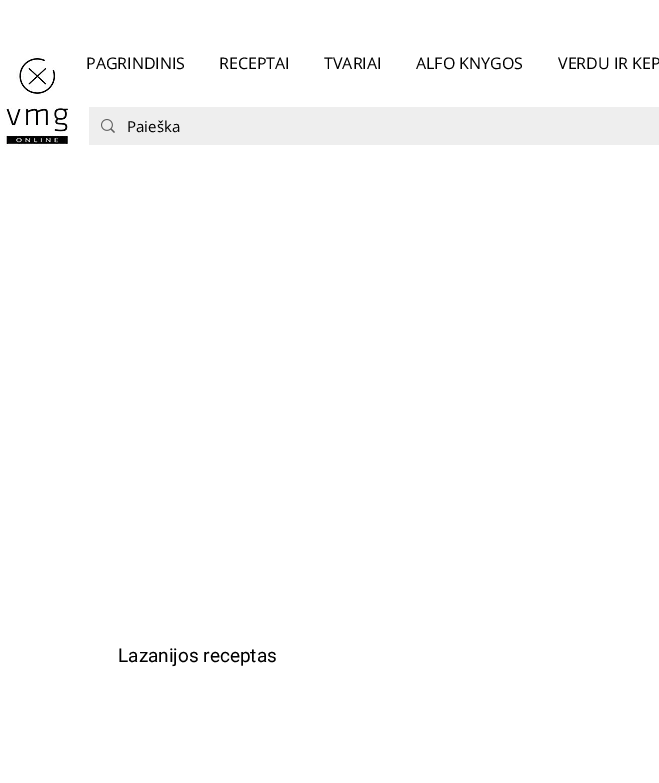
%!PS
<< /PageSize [659 783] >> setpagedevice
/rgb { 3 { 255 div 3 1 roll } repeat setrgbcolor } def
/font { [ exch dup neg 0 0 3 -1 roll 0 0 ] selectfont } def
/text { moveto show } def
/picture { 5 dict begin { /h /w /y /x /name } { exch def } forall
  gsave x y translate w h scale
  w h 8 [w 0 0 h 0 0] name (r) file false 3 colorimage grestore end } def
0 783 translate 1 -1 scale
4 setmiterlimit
255 255 255 rgb
0 0 659 783 rectfill
(img_01.rgb) 4 55 64 92 picture
238 238 238 rgb
89 107 570 38 rectfill
(img_02.rgb) 101 119 14 14 picture
/OpenSans-Regular 16 font
0 0 0 rgb
(PAGRINDINIS) 86 69 text
(RECEPTAI) 219 69 text
(TVARIAI) 324 69 text
(ALFO KNYGOS) 416 69 text
(VERDU IR KEP) 558 69 text
/OpenSans-Regular 15 font
(Paieška) 127 132 text
/Roboto-Regular 19 font
(Lazanijos receptas) 118 662 text
showpage
